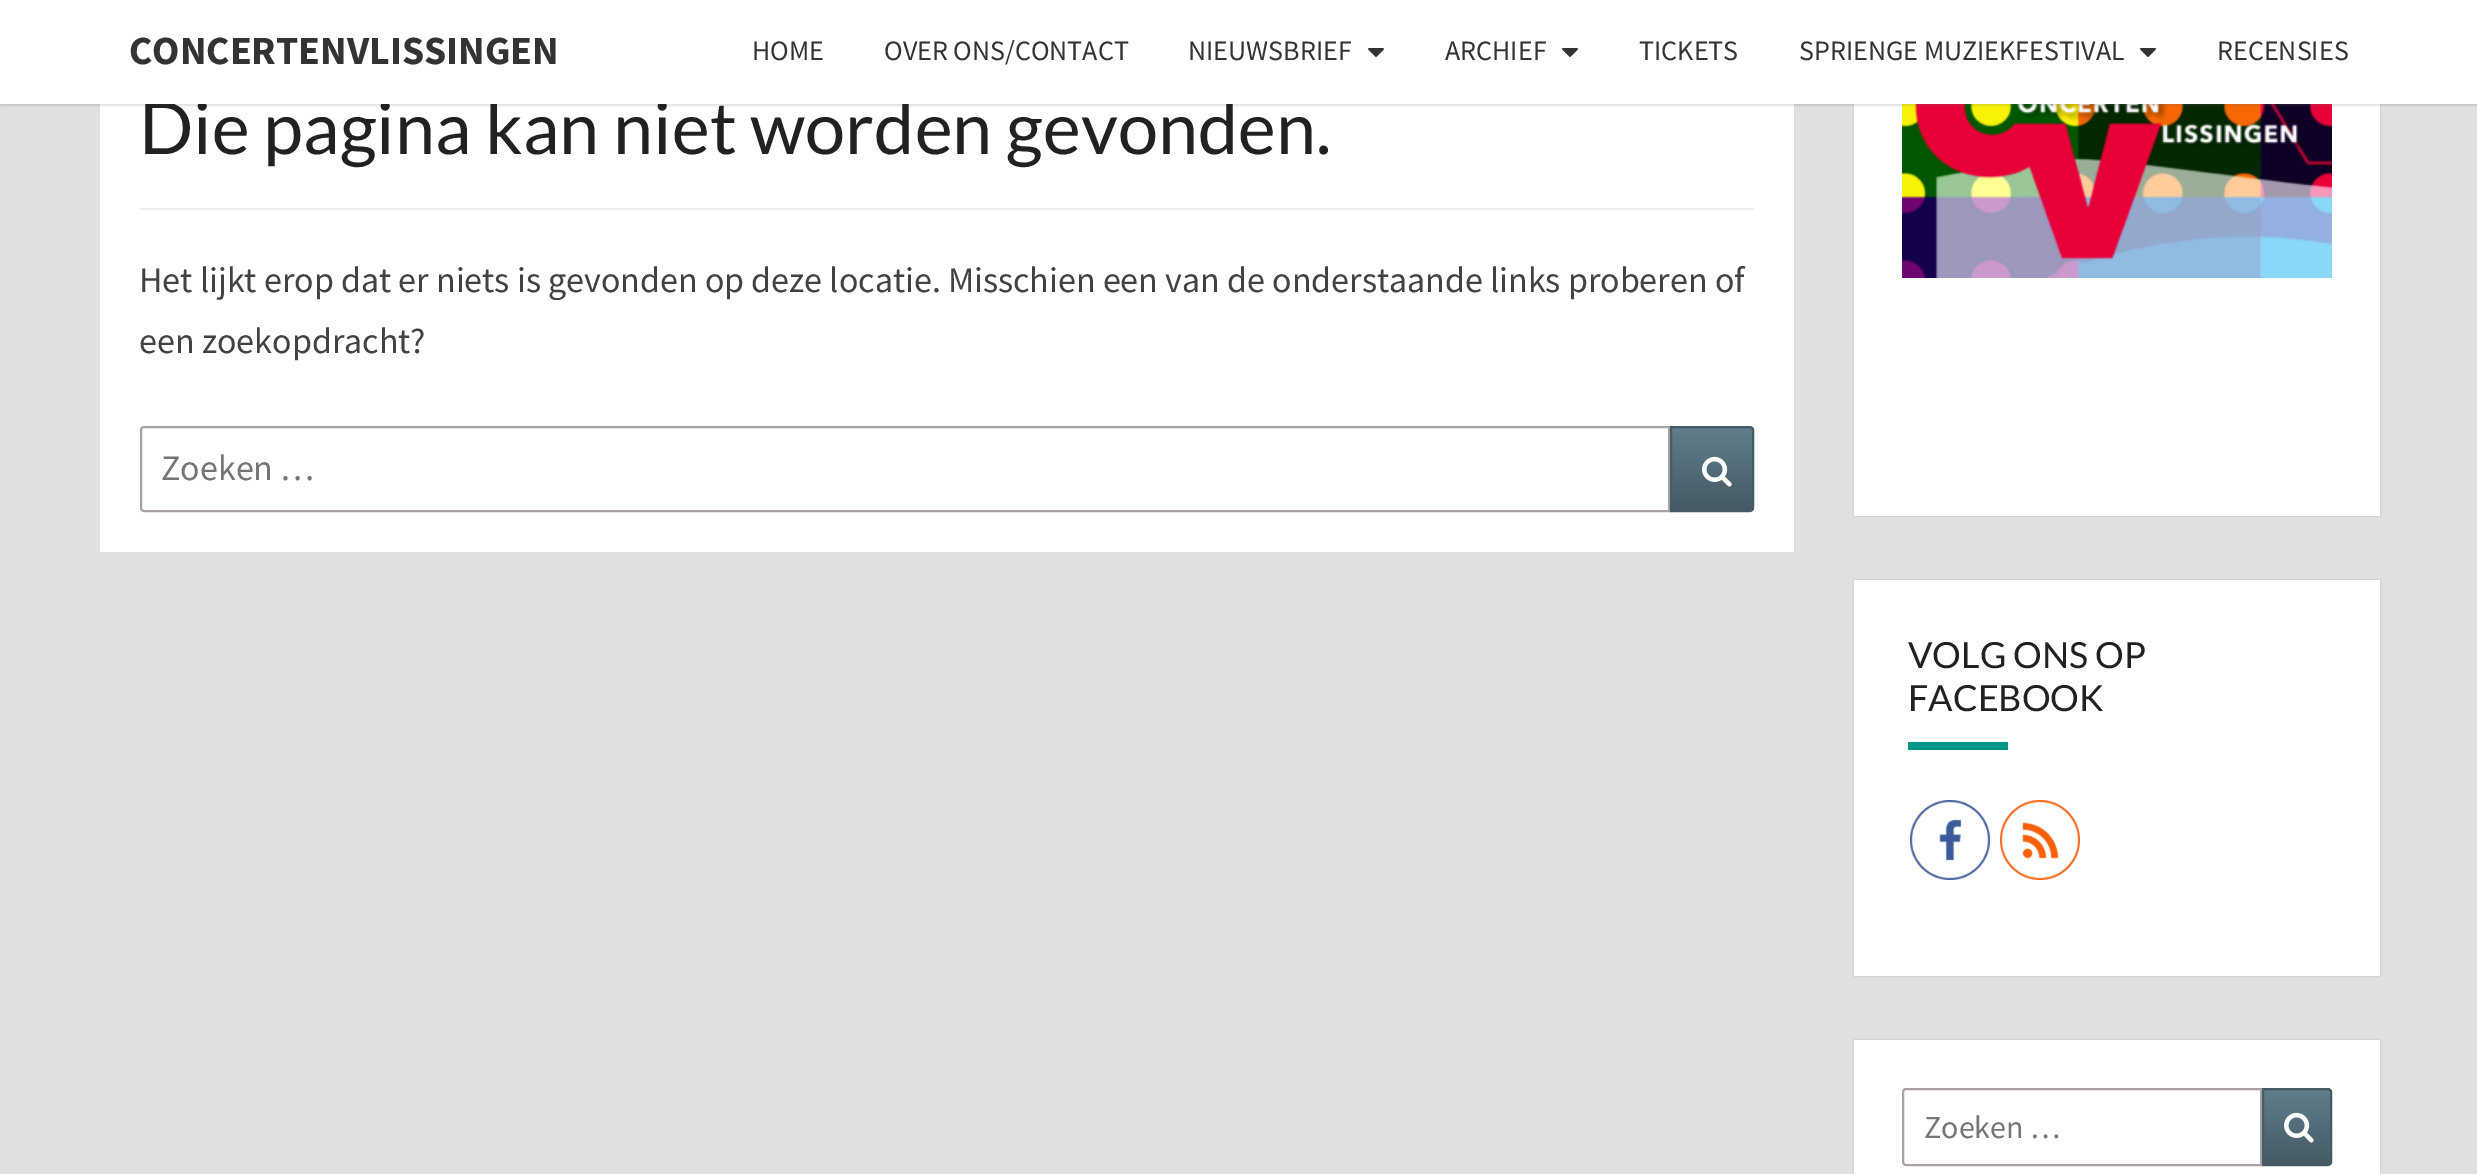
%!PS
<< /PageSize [2477 1174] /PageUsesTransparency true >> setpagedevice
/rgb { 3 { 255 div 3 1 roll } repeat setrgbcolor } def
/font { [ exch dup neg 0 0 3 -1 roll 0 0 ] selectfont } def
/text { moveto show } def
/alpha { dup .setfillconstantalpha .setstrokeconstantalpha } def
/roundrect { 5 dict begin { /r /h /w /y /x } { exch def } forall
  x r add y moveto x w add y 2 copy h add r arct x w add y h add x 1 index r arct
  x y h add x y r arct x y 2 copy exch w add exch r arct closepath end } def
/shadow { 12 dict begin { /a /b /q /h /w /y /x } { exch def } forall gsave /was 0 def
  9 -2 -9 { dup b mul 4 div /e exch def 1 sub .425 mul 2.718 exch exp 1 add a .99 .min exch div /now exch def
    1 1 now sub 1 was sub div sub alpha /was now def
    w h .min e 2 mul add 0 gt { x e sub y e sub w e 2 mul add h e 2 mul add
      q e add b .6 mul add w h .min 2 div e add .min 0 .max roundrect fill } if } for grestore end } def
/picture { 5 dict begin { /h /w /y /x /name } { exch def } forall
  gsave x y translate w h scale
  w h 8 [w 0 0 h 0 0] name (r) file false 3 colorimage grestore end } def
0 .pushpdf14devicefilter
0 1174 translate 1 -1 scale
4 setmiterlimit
224 224 224 rgb
0 0 2477 1174 rectfill
255 255 255 rgb
100 104 1694 448 rectfill
0 0 0 rgb
1854 -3 526 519 0 1 0.15 shadow
255 255 255 rgb
1854 104 526 412 rectfill
(img_03.rgb) 1902 104 430 174 picture
100 100 100 rgb
0 2 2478 104 0 1 0.2 shadow
238 238 238 rgb
140 208 1614 2 rectfill
170 161 168 rgb
2 setlinewidth
144 427 moveto 1525 0 rlineto 0 84 rlineto -1525 0 rlineto -1.5 0 -3 -1.5 -3 -3 rcurveto 0 -78 rlineto 0 -1.5 1.5 -3 3 -3 rcurveto closepath stroke
gsave 1672 428 moveto 82 0 rlineto 0 82 rlineto -82 0 rlineto closepath clip newpath
<< /ShadingType 2 /ColorSpace /DeviceRGB /Coords [1712 428 1712 510] /Extend [true true] /Function << /FunctionType 2 /Domain [0 1] /C0 [0.376 0.49 0.545] /C1 [0.271 0.353 0.392] /N 1 >> >> shfill grestore
69 90 100 rgb
1671 427 moveto 79 0 rlineto 1.5 0 3 1.5 3 3 rcurveto 0 78 rlineto 0 1.5 -1.5 3 -3 3 rcurveto -79 0 rlineto closepath stroke
(img_02.rgb) 1702 456 30 31 picture
0 0 0 rgb
1854 580 526 396 0 1 0.15 shadow
255 255 255 rgb
1854 580 526 396 rectfill
0 150 136 rgb
1908 742 100 8 rectfill
(img_04.rgb) 1910 800 80 80 picture
(img_05.rgb) 2000 800 80 80 picture
0 0 0 rgb
1854 1040 526 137 0 1 0.15 shadow
255 255 255 rgb
1854 1040 526 134 rectfill
170 161 168 rgb
1906 1089 moveto 355 0 rlineto 0 76 rlineto -355 0 rlineto -1.5 0 -3 -1.5 -3 -3 rcurveto 0 -70 rlineto 0 -1.5 1.5 -3 3 -3 rcurveto closepath stroke
gsave 2264 1090 moveto 68 0 rlineto 0 74 rlineto -68 0 rlineto closepath clip newpath
<< /ShadingType 2 /ColorSpace /DeviceRGB /Coords [2297 1090 2297 1164] /Extend [true true] /Function << /FunctionType 2 /Domain [0 1] /C0 [0.376 0.49 0.545] /C1 [0.271 0.353 0.392] /N 1 >> >> shfill grestore
69 90 100 rgb
2263 1089 moveto 65 0 rlineto 1.5 0 3 1.5 3 3 rcurveto 0 70 rlineto 0 1.5 -1.5 3 -3 3 rcurveto -65 0 rlineto closepath stroke
(img_06.rgb) 2284 1112 30 31 picture
/Lato-Regular 72 font
33 33 33 rgb
(Die pagina kan niet worden gevonden.) 139 154 text
255 255 255 rgb
0 0 2477 104 rectfill
/SourceSansPro-Regular 28 font
51 51 51 rgb
(RECENSIES) 2217 60 text
(img_01.rgb) 2140 48 16 9 picture
(SPRIENGE MUZIEKFESTIVAL) 1799 60 text
(TICKETS) 1639 60 text
(img_01.rgb) 1562 48 16 9 picture
(ARCHIEF) 1445 60 text
(img_01.rgb) 1368 48 16 9 picture
(NIEUWSBRIEF) 1188 60 text
(OVER ONS/CONTACT) 884 60 text
(HOME) 752 60 text
/SourceSansPro-Bold 40 font
(CONCERTENVLISSINGEN) 129 64 text
/SourceSansPro-Regular 36 font
66 66 66 rgb
(Het lijkt erop dat er niets is gevonden op deze locatie. Misschien een van de onderstaande links proberen of) 139 292 text
(een zoekopdracht?) 139 353 text
117 117 117 rgb
(Zoeken …) 161 480 text
/Lato-Regular 36 font
33 33 33 rgb
(VOLG ONS OP) 1908 668 text
(FACEBOOK) 1908 711 text
/SourceSansPro-Regular 32 font
117 117 117 rgb
(Zoeken …) 1924 1138 text
.poppdf14devicefilter showpage
